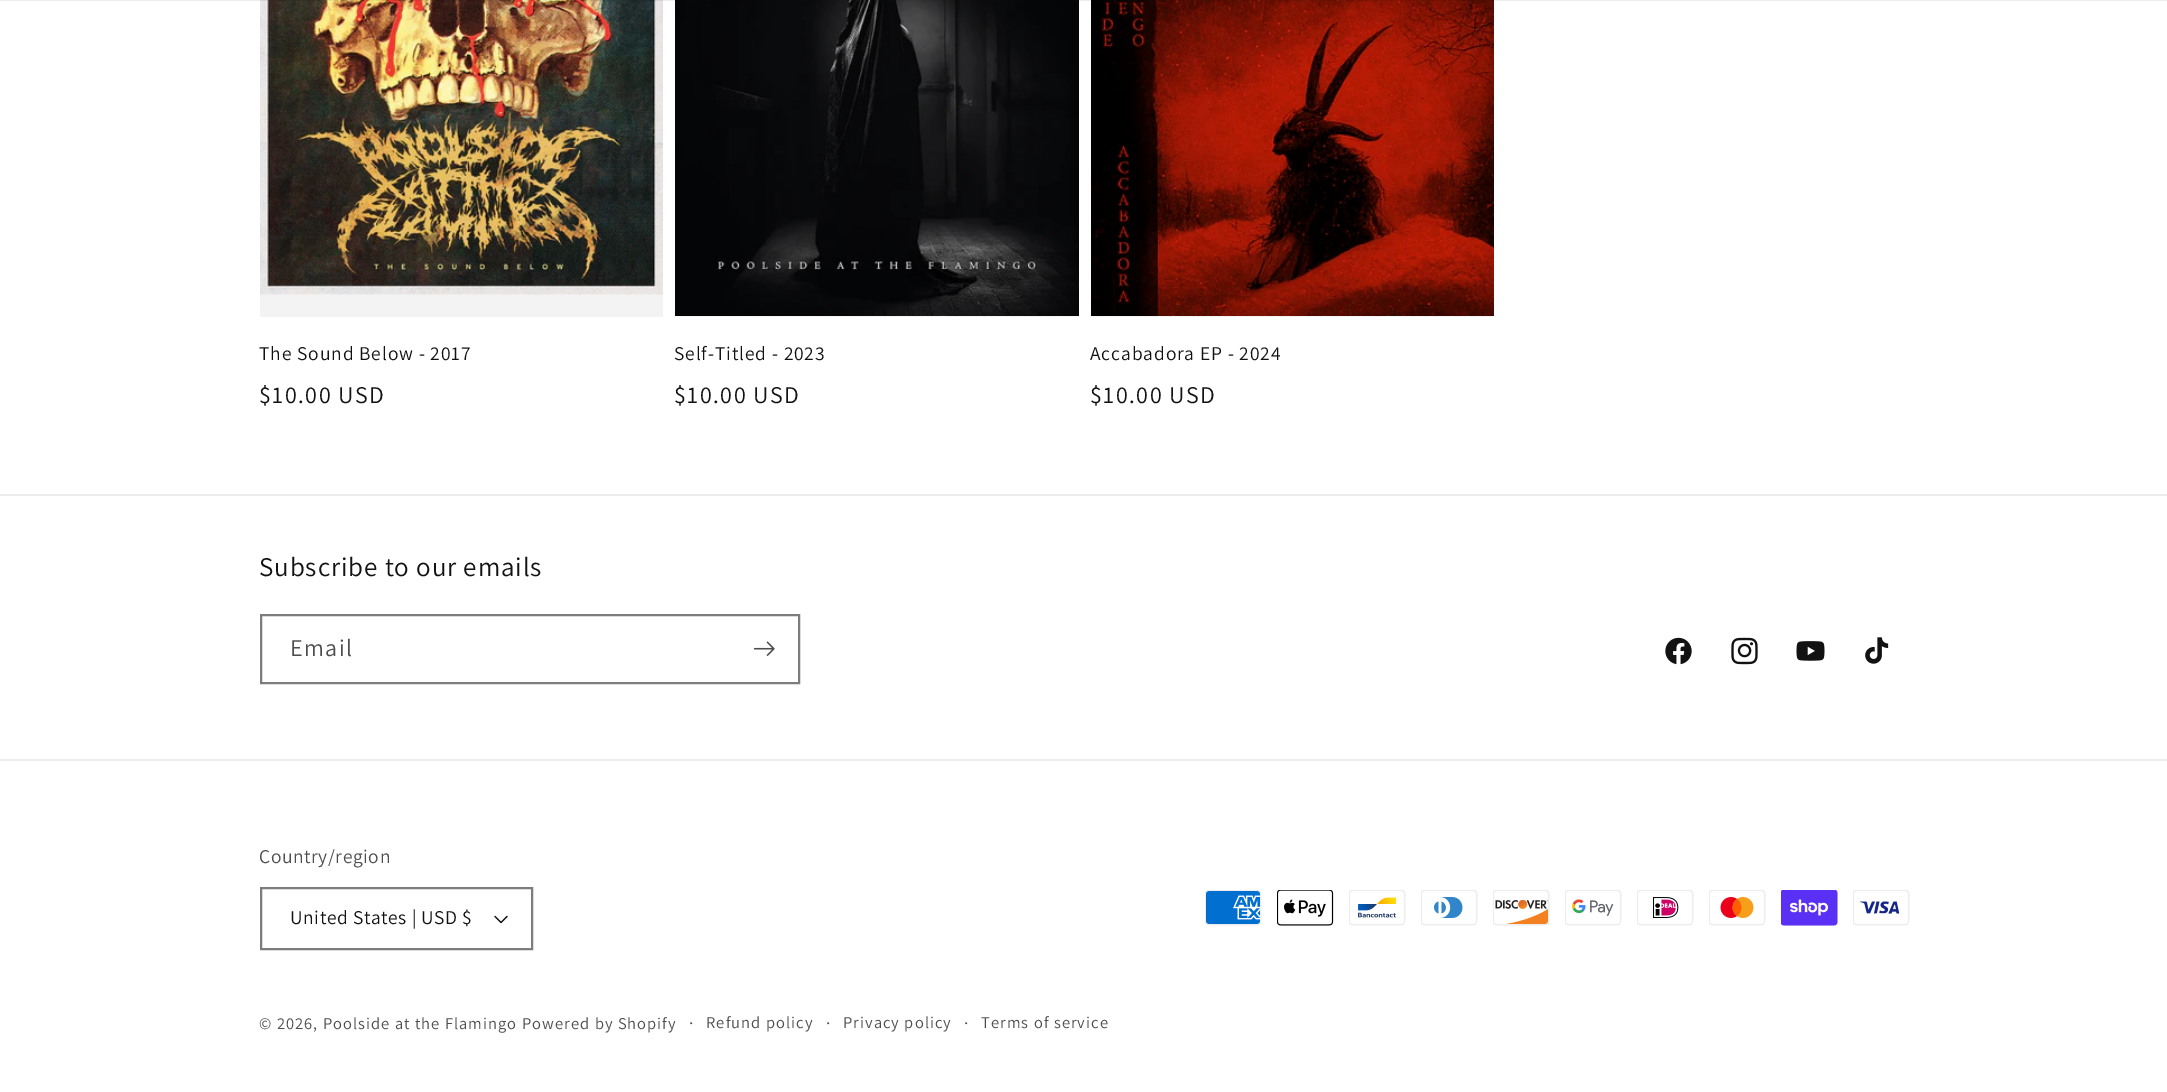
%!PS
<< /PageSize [2167 1092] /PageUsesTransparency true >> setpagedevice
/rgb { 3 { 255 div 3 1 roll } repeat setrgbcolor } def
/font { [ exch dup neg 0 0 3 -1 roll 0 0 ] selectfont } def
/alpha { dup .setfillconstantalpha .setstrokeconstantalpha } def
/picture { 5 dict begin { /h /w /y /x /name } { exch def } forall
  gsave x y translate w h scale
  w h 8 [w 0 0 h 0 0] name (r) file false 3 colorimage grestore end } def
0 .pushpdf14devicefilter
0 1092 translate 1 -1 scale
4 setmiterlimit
255 255 255 rgb
0 0 2167 1092 rectfill
243 243 243 rgb
260 291 403 26 rectfill
(img_01.rgb) 260 0 403 295 picture
(img_02.rgb) 675 0 404 316 picture
(img_03.rgb) 1091 0 403 316 picture
0.08 alpha
18 18 18 rgb
0 0 2167 1 rectfill
1 alpha
243 243 243 rgb
675 316 404 1 rectfill
1091 316 403 1 rectfill
236 236 236 rgb
0 494 2167 2 rectfill
125 125 125 rgb
2 setlinewidth
261 615 538 68 rectstroke
(img_04.rgb) 753 641 22 15 picture
(img_05.rgb) 1665 637 27 28 picture
(img_06.rgb) 1731 637 27 28 picture
(img_07.rgb) 1796 641 29 20 picture
(img_08.rgb) 1865 637 24 27 picture
236 236 236 rgb
0 759 2167 2 rectfill
(img_09.rgb) 494 915 14 9 picture
125 125 125 rgb
261 888 271 61 rectstroke
(img_10.rgb) 1205 890 57 36 picture
(img_11.rgb) 1277 890 57 36 picture
(img_12.rgb) 1349 890 57 36 picture
(img_13.rgb) 1421 890 57 36 picture
(img_14.rgb) 1493 890 57 36 picture
(img_15.rgb) 1565 890 57 36 picture
(img_16.rgb) 1637 890 57 36 picture
(img_17.rgb) 1709 890 57 36 picture
(img_18.rgb) 1781 890 57 36 picture
(img_19.rgb) 1853 890 57 36 picture
/Assistant-Regular 19.5 font
18 18 18 rgb
259 360 moveto 0.9 0 (The Sound Below - 2017) ashow
/Assistant-Regular 24 font
259 403 moveto 1.5 0 ($10.00 USD) ashow
/Assistant-Regular 19.5 font
674 360 moveto 0.9 0 (Self-Titled - 2023) ashow
/Assistant-Regular 24 font
674 403 moveto 1.5 0 ($10.00 USD) ashow
/Assistant-Regular 19.5 font
1090 360 moveto 0.9 0 (Accabadora EP - 2024) ashow
/Assistant-Regular 24 font
1090 403 moveto 1.5 0 ($10.00 USD) ashow
/Assistant-Regular 27 font
259 576 moveto 0.9 0 (Subscribe to our emails) ashow
/Assistant-Regular 24 font
77 77 77 rgb
290 656 moveto 1.5 0 (Email) ashow
/Assistant-Regular 19.5 font
259 863 moveto 0.6 0 (Country/region) ashow
18 18 18 rgb
290 924 moveto 0.6 0 (United States | USD $) ashow
/Assistant-Regular 16.5 font
77 77 77 rgb
259 1029 moveto 1.05 0 (© 2026, Poolside at the Flamingo) ashow
522 1029 moveto 1.05 0 (Powered by Shopify) ashow
/Assistant-Regular 18 font
689 1029 moveto 1.05 0 (·) ashow
/Assistant-Regular 16.5 font
706 1028 moveto 1.05 0 (Refund policy) ashow
/Assistant-Regular 18 font
826 1029 moveto 1.05 0 (·) ashow
/Assistant-Regular 16.5 font
843 1028 moveto 1.05 0 (Privacy policy) ashow
/Assistant-Regular 18 font
964 1029 moveto 1.05 0 (·) ashow
/Assistant-Regular 16.5 font
981 1028 moveto 1.05 0 (Terms of service) ashow
.poppdf14devicefilter showpage
